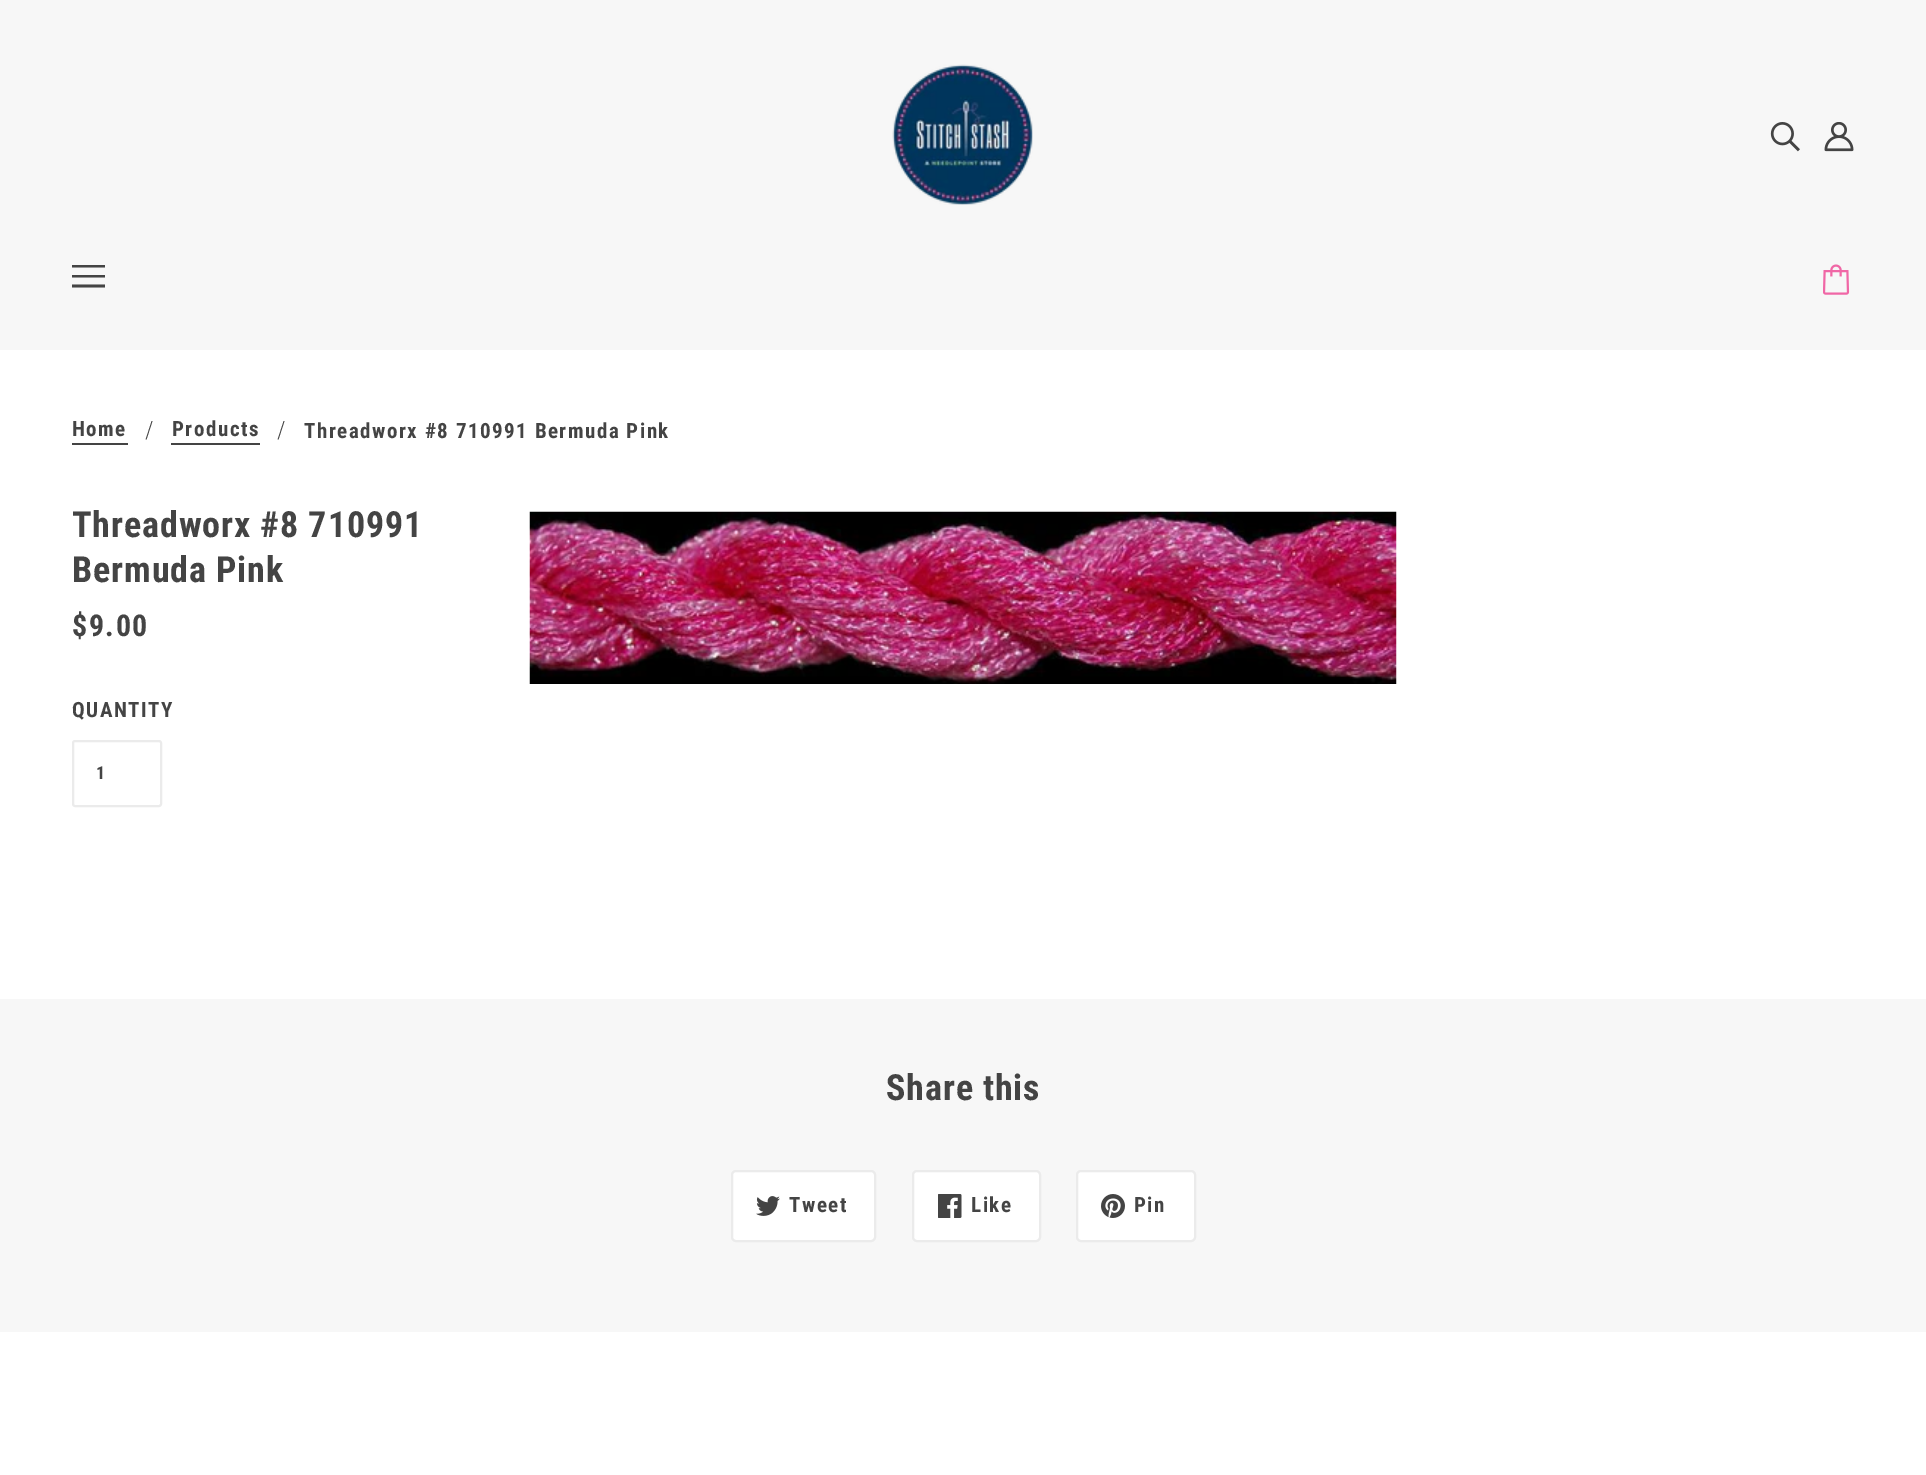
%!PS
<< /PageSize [1926 1475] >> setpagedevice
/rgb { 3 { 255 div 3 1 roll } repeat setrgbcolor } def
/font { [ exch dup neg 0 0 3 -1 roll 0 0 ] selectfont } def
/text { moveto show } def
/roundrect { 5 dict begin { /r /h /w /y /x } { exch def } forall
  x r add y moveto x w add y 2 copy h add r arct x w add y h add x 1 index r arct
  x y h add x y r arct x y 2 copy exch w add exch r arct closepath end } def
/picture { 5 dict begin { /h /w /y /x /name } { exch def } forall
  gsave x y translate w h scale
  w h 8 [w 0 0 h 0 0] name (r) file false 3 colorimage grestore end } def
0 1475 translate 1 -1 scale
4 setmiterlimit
255 255 255 rgb
0 0 1926 1475 rectfill
247 247 247 rgb
0 0 1926 350 rectfill
(img_01.rgb) 892 64 141 141 picture
(img_02.rgb) 1770 122 30 30 picture
(img_03.rgb) 1824 122 30 30 picture
68 68 68 rgb
72 267.5 moveto 0 -2.5 rlineto 33 0 rlineto 0 2.5 rlineto closepath 72 277.5 moveto 0 -2.5 rlineto 33 0 rlineto 0 2.5 rlineto closepath 72 287.5 moveto 0 -3 rlineto 33 0 rlineto 0 3 rlineto closepath fill
(img_04.rgb) 1823 264 27 31 picture
72 443 56 2 rectfill
171 443 89 2 rectfill
(img_05.rgb) 529 511 868 173 picture
235 235 235 rgb
2 setlinewidth
73 741 88 65 2 roundrect stroke
247 247 247 rgb
0 999 1926 333 rectfill
255 255 255 rgb
732 1171 143 70 4 roundrect gsave fill grestore
235 235 235 rgb
stroke
(img_06.rgb) 756 1196 24 20 picture
255 255 255 rgb
913 1171 127 70 4 roundrect gsave fill grestore
235 235 235 rgb
stroke
(img_07.rgb) 938 1194 24 24 picture
255 255 255 rgb
1077 1171 118 70 4 roundrect gsave fill grestore
235 235 235 rgb
stroke
(img_08.rgb) 1101 1194 24 24 picture
/RobotoCondensed-Bold 21 font
68 68 68 rgb
72 436 moveto 1.5 0 (Home) ashow
/RobotoCondensed-Light 24 font
(/) 145 438 text
/RobotoCondensed-Bold 21 font
172 436 moveto 1.5 0 (Products) ashow
/RobotoCondensed-Light 24 font
(/) 277 438 text
/RobotoCondensed-Bold 21 font
304 438 moveto 1.5 0 (Threadworx #8 710991 Bermuda Pink) ashow
/RobotoCondensed-Bold 36 font
72 537 moveto 0.9 0 (Threadworx #8 710991) ashow
72 582 moveto 0.9 0 (Bermuda Pink) ashow
/RobotoCondensed-Bold 30 font
72 636 moveto 1.5 0 ($9.00) ashow
/RobotoCondensed-Bold 21 font
72 717 moveto 1.5 0 (QUANTITY) ashow
/RobotoCondensed-Bold 18 font
96 779 moveto 1 0 (1) ashow
/RobotoCondensed-Bold 36 font
886 1100 moveto 0.9 0 (Share this) ashow
/RobotoCondensed-Bold 21 font
789 1212 moveto 1.5 0 (Tweet) ashow
971 1212 moveto 1.5 0 (Like) ashow
1134 1212 moveto 1.5 0 (Pin) ashow
showpage
